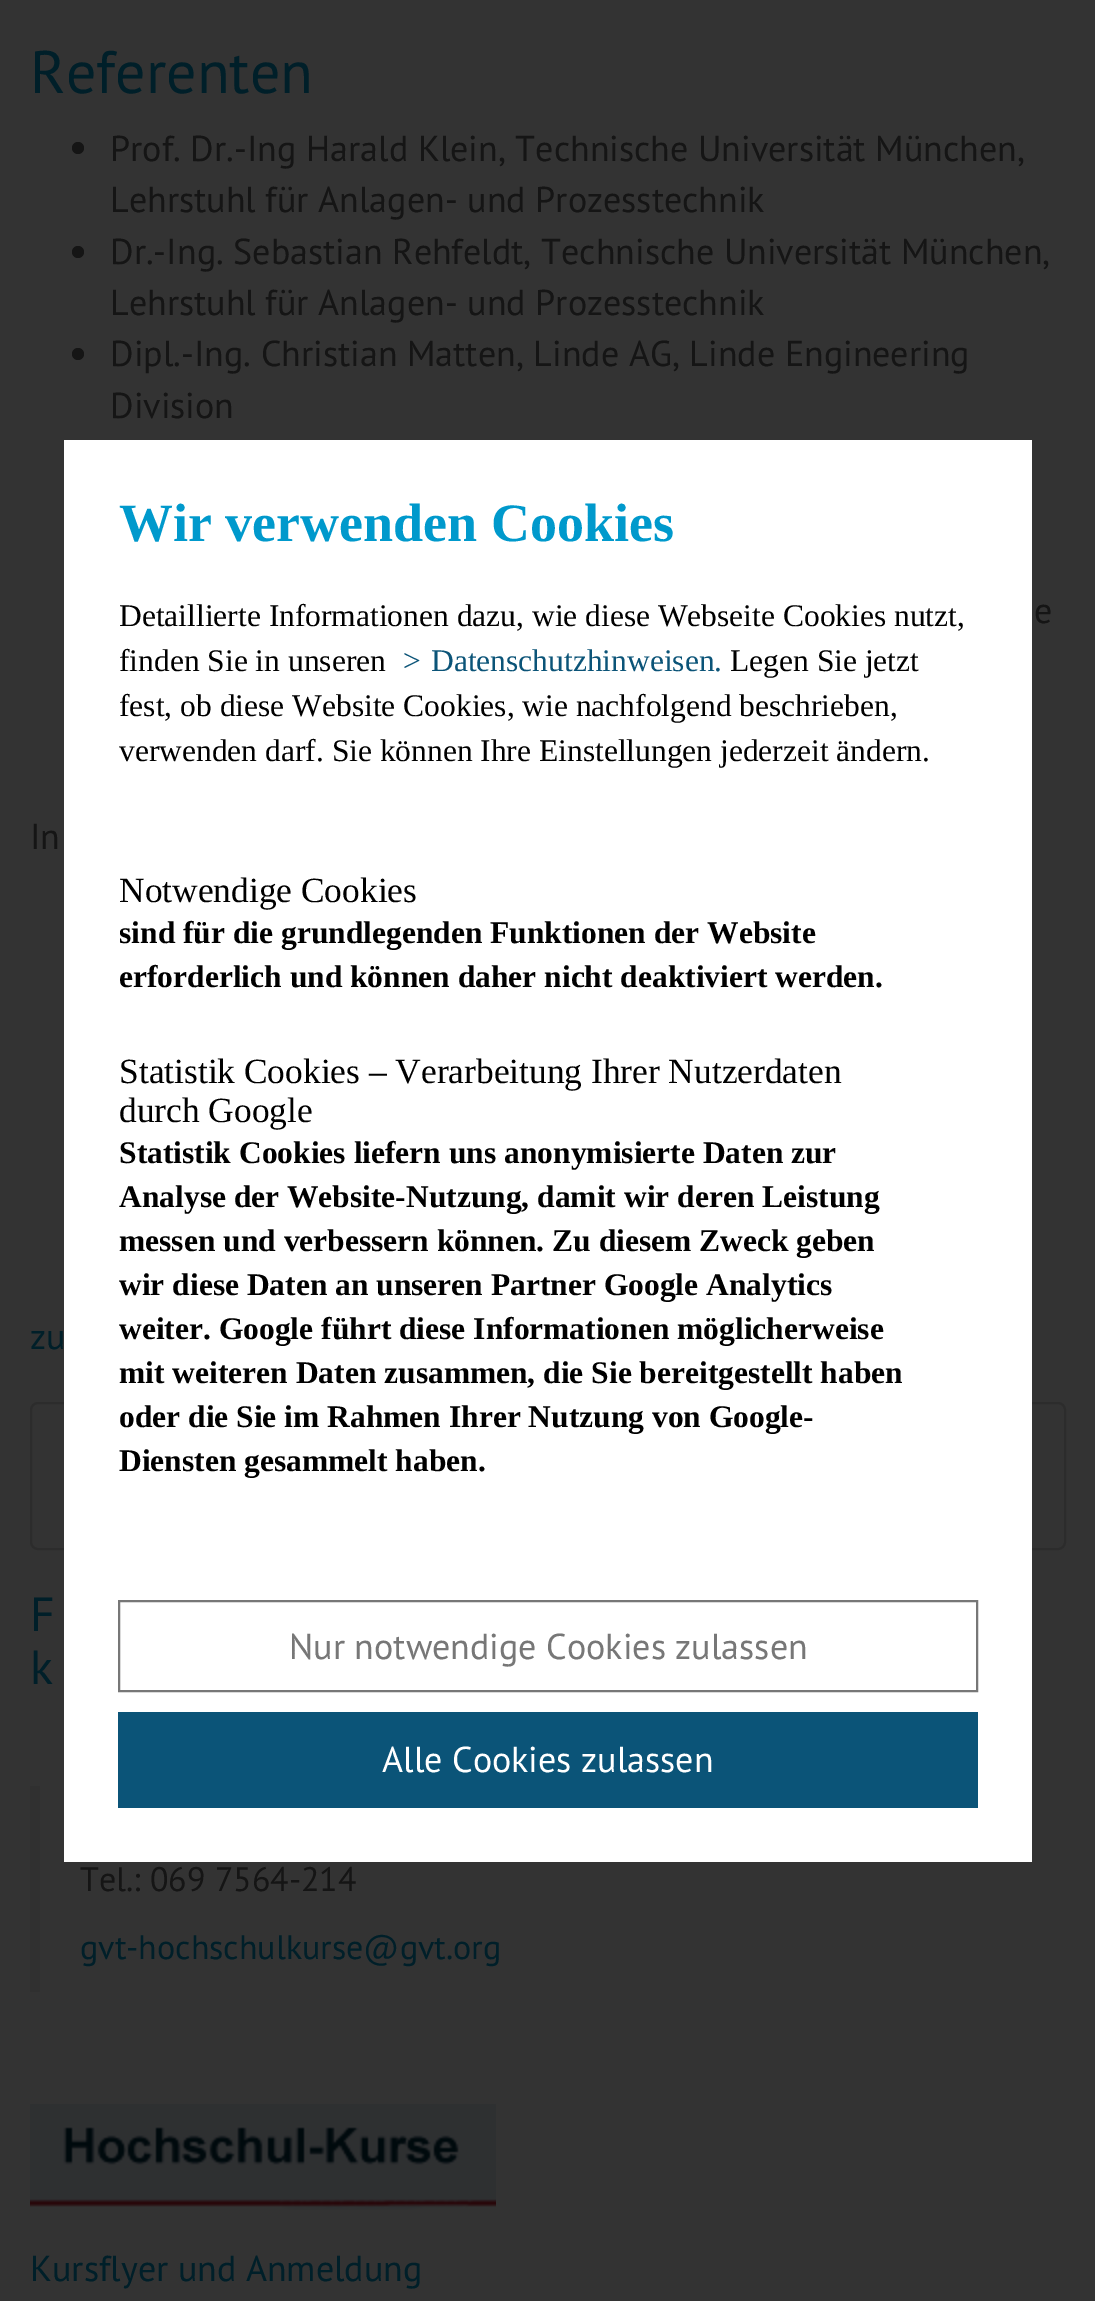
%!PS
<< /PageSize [1095 2301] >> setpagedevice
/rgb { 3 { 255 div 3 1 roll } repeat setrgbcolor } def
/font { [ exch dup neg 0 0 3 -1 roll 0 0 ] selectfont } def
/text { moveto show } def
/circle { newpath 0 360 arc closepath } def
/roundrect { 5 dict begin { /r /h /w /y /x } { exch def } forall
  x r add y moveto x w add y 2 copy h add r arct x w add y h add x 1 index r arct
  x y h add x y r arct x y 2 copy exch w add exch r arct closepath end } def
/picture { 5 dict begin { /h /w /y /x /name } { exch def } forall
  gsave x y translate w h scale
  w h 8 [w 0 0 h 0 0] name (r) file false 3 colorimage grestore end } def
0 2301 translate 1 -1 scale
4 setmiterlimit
51 51 51 rgb
0 0 1095 2301 rectfill
21 21 21 rgb
78 148 6 circle fill
78 252 6 circle fill
78 354 6 circle fill
44 44 44 rgb
2 setlinewidth
31 1403 1034 146 7 roundrect stroke
48 48 48 rgb
30 1786 10 206 rectfill
(img_01.rgb) 30 2104 466 106 picture
255 255 255 rgb
64 440 968 1422 rectfill
119 119 119 rgb
119 1601 858 90 rectstroke
11 84 120 rgb
118 1712 860 96 rectfill
/PTSans-Regular 60 font
0 31 41 rgb
(Referenten) 30 93 text
/PTSans-Regular 36 font
21 21 21 rgb
(Prof. Dr.-Ing Harald Klein, Technische Universität München,) 110 161 text
(Lehrstuhl für Anlagen- und Prozesstechnik) 110 212 text
(Dr.-Ing. Sebastian Rehfeldt, Technische Universität München,) 110 264 text
(Lehrstuhl für Anlagen- und Prozesstechnik) 110 315 text
(Dipl.-Ing. Christian Matten, Linde AG, Linde Engineering) 110 366 text
(Division) 110 418 text
(e) 1034 623 text
(In) 30 849 text
0 31 41 rgb
(zu) 30 1349 text
/PTSans-Regular 48 font
(F) 30 1631 text
(k) 30 1684 text
/PTSans-Regular 34 font
21 21 21 rgb
(Tel.: 069 7564-214) 80 1891 text
0 31 41 rgb
(gvt-hochschulkurse@gvt.org) 80 1959 text
/PTSans-Regular 36 font
(Kursflyer und Anmeldung) 30 2281 text
/LiberationSerif-Bold 54 font
0 153 204 rgb
(Wir verwenden Cookies) 119 541 text
/LiberationSerif-Regular 31.5 font
0 0 0 rgb
(Detaillierte Informationen dazu, wie diese Webseite Cookies nutzt,) 119 626 text
(finden Sie in unseren) 119 671 text
11 84 120 rgb
(>) 403 671 text
(Datenschutzhinweisen.) 431 671 text
0 0 0 rgb
(Legen Sie jetzt) 730 671 text
(fest, ob diese Website Cookies, wie nachfolgend beschrieben,) 119 716 text
(verwenden darf. Sie können Ihre Einstellungen jederzeit ändern.) 119 761 text
/LiberationSerif-Regular 35.4 font
(Notwendige Cookies) 119 902 text
/LiberationSerif-Bold 31.5 font
(sind für die grundlegenden Funktionen der Website) 119 943 text
(erforderlich und können daher nicht deaktiviert werden.) 119 987 text
/LiberationSerif-Regular 35.4 font
(Statistik Cookies – Verarbeitung Ihrer Nutzerdaten) 119 1083 text
(durch Google) 119 1122 text
/LiberationSerif-Bold 31.5 font
(Statistik Cookies liefern uns anonymisierte Daten zur) 119 1163 text
(Analyse der Website-Nutzung, damit wir deren Leistung) 119 1207 text
(messen und verbessern können. Zu diesem Zweck geben) 119 1251 text
(wir diese Daten an unseren Partner Google Analytics) 119 1295 text
(weiter. Google führt diese Informationen möglicherweise) 119 1339 text
(mit weiteren Daten zusammen, die Sie bereitgestellt haben) 119 1383 text
(oder die Sie im Rahmen Ihrer Nutzung von Google-) 119 1427 text
(Diensten gesammelt haben.) 119 1471 text
/PTSans-Regular 36 font
119 119 119 rgb
(Nur notwendige Cookies zulassen) 289 1659 text
255 255 255 rgb
(Alle Cookies zulassen) 382 1772 text
showpage
